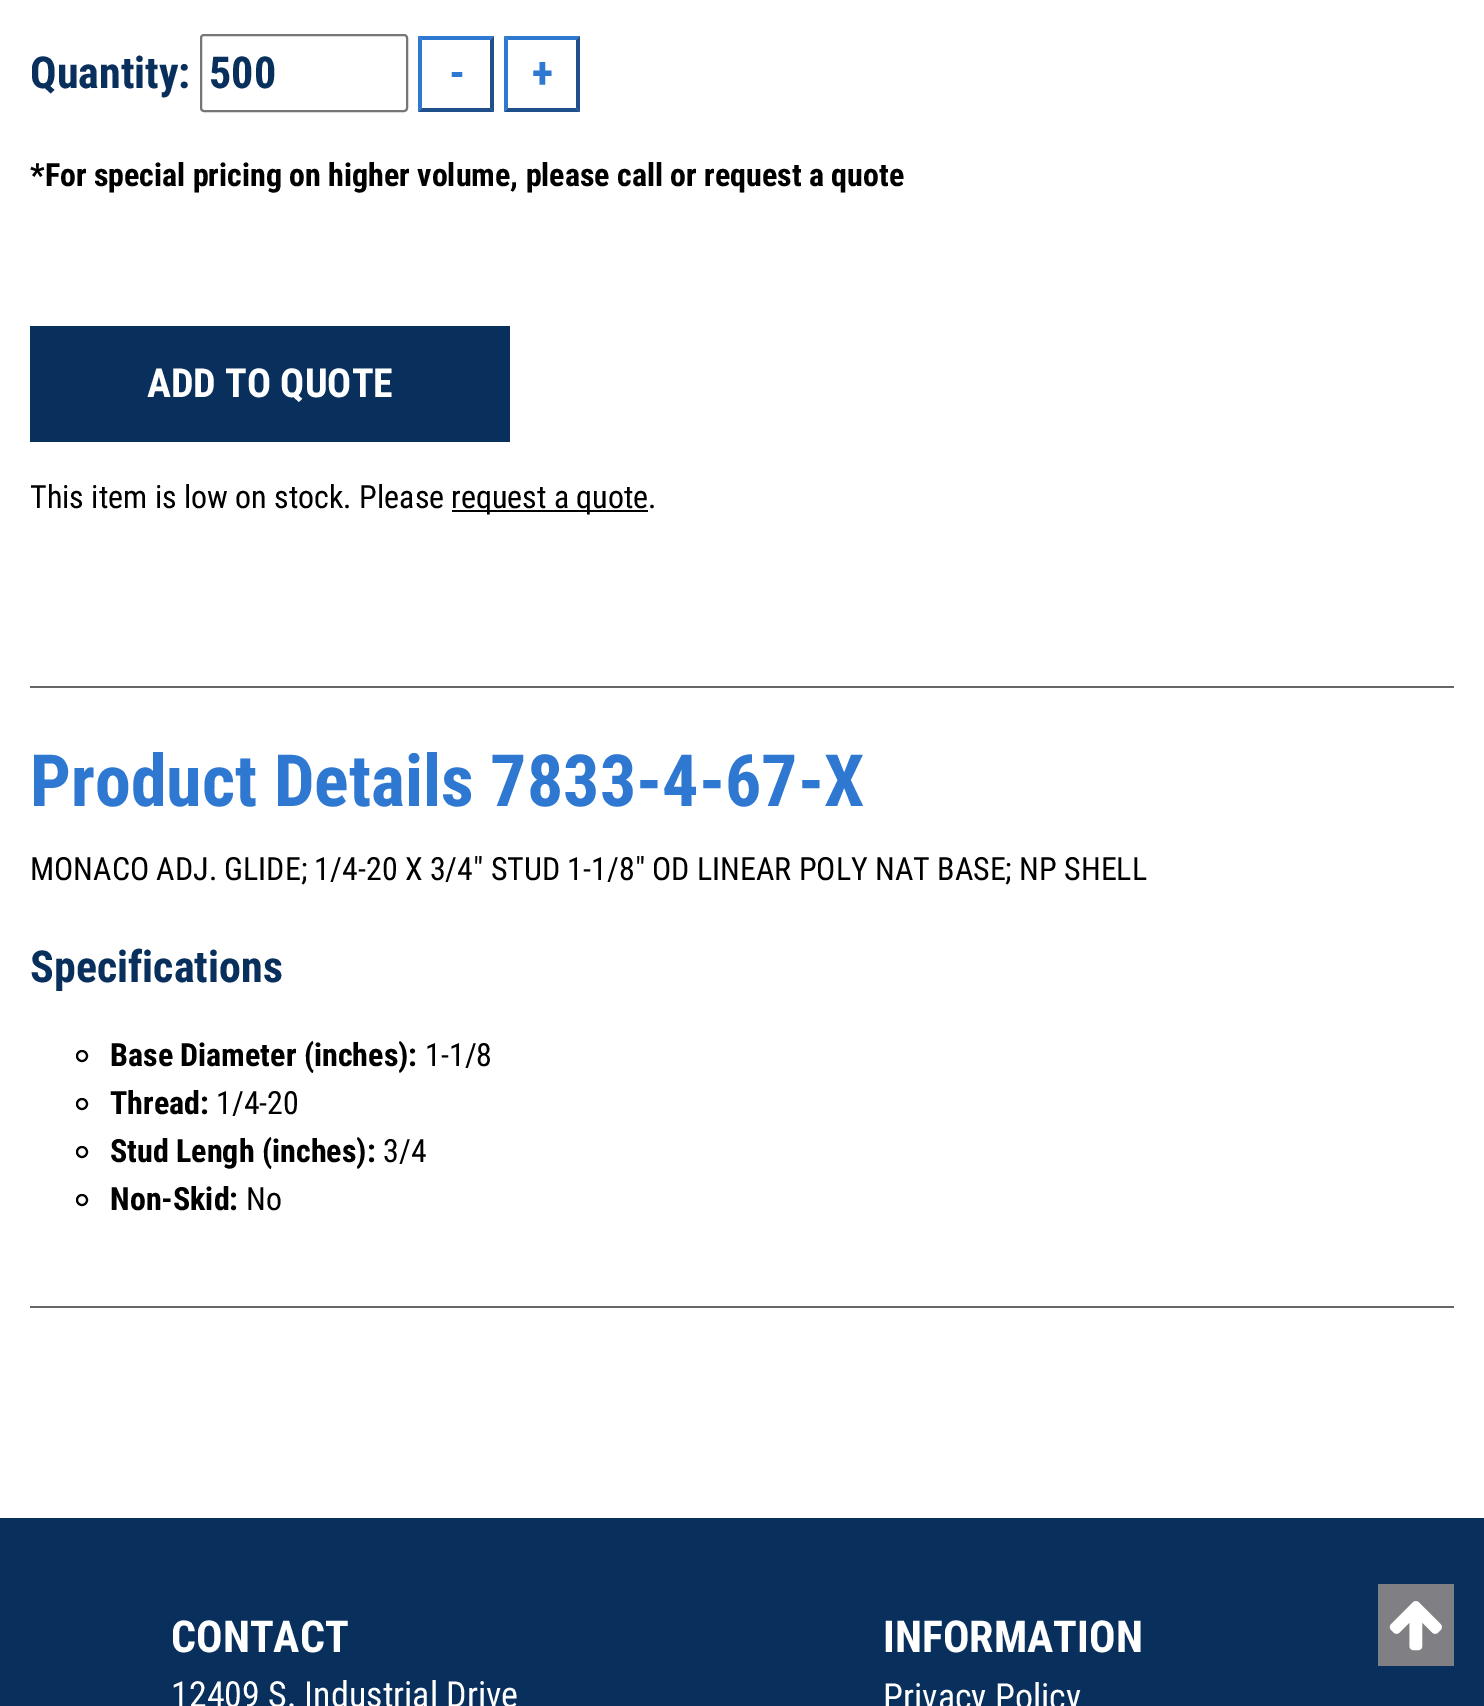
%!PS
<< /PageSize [1484 1706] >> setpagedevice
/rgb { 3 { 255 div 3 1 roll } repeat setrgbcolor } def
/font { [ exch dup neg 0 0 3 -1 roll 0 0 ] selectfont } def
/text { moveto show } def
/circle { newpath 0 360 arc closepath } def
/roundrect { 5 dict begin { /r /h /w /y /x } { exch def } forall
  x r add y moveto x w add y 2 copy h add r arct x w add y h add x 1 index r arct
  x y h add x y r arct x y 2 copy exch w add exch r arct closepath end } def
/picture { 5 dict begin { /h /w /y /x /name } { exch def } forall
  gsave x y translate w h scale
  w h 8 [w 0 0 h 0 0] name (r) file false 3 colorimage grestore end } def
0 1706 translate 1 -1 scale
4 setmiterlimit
255 255 255 rgb
0 0 1484 1706 rectfill
118 118 118 rgb
2 setlinewidth
201 35 206 76 3 roundrect stroke
47 120 209 rgb
418 36 moveto 76 0 rlineto -4 4 rlineto -68 0 rlineto closepath fill
31 80 139 rgb
494 36 moveto 0 76 rlineto -4 -4 rlineto 0 -68 rlineto closepath fill
494 112 moveto -76 0 rlineto 4 -4 rlineto 68 0 rlineto closepath fill
47 120 209 rgb
418 112 moveto 0 -76 rlineto 4 4 rlineto 0 68 rlineto closepath fill
504 36 moveto 76 0 rlineto -4 4 rlineto -68 0 rlineto closepath fill
31 80 139 rgb
580 36 moveto 0 76 rlineto -4 -4 rlineto 0 -68 rlineto closepath fill
580 112 moveto -76 0 rlineto 4 -4 rlineto 68 0 rlineto closepath fill
47 120 209 rgb
504 112 moveto 0 -76 rlineto 4 4 rlineto 0 68 rlineto closepath fill
9 48 93 rgb
30 326 480 116 rectfill
0 0 0 rgb
452 510 196 2 rectfill
102 102 102 rgb
30 686 1424 2 rectfill
0 0 0 rgb
82 1056 5 circle stroke
82 1104 5 circle stroke
82 1152 5 circle stroke
82 1200 5 circle stroke
102 102 102 rgb
30 1306 1424 2 rectfill
9 48 93 rgb
0 1518 1484 188 rectfill
128 127 131 rgb
1378 1584 76 82 rectfill
(img_01.rgb) 1389 1601 53 50 picture
/RobotoCondensed-Bold 44 font
9 48 93 rgb
(Quantity:) 30 88 text
(500) 209 88 text
47 120 209 rgb
(-) 449 88 text
(+) 532 88 text
/RobotoCondensed-Bold 32 font
0 0 0 rgb
(*For special pricing on higher volume, please call or request a quote) 30 186 text
/RobotoCondensed-Bold 40 font
255 255 255 rgb
(ADD TO QUOTE) 147 397 text
/RobotoCondensed-Regular 32 font
0 0 0 rgb
(This item is low on stock. Please) 30 508 text
(request a quote.) 451 508 text
/RobotoCondensed-Bold 72 font
47 120 209 rgb
(Product Details 7833-4-67-X) 30 806 text
/RobotoCondensed-Regular 32 font
0 0 0 rgb
(MONACO ADJ. GLIDE; 1/4-20 X 3/4" STUD 1-1/8" OD LINEAR POLY NAT BASE; NP SHELL) 30 880 text
/RobotoCondensed-Bold 44 font
9 48 93 rgb
(Specifications) 30 982 text
/RobotoCondensed-Bold 32 font
0 0 0 rgb
(Base Diameter \(inches\):) 110 1066 text
/RobotoCondensed-Regular 32 font
(1-1/8) 425 1066 text
/RobotoCondensed-Bold 32 font
(Thread:) 110 1114 text
/RobotoCondensed-Regular 32 font
(1/4-20) 216 1114 text
/RobotoCondensed-Bold 32 font
(Stud Lengh \(inches\):) 110 1162 text
/RobotoCondensed-Regular 32 font
(3/4) 383 1162 text
/RobotoCondensed-Bold 32 font
(Non-Skid:) 110 1210 text
/RobotoCondensed-Regular 32 font
(No) 246 1210 text
/RobotoCondensed-Bold 44 font
255 255 255 rgb
(CONTACT) 171 1652 text
/RobotoCondensed-Regular 36 font
(12409 S. Industrial Drive) 171 1707 text
/RobotoCondensed-Bold 44 font
(INFORMATION) 883 1652 text
/RobotoCondensed-Regular 36 font
(Privacy Policy) 883 1709 text
showpage
